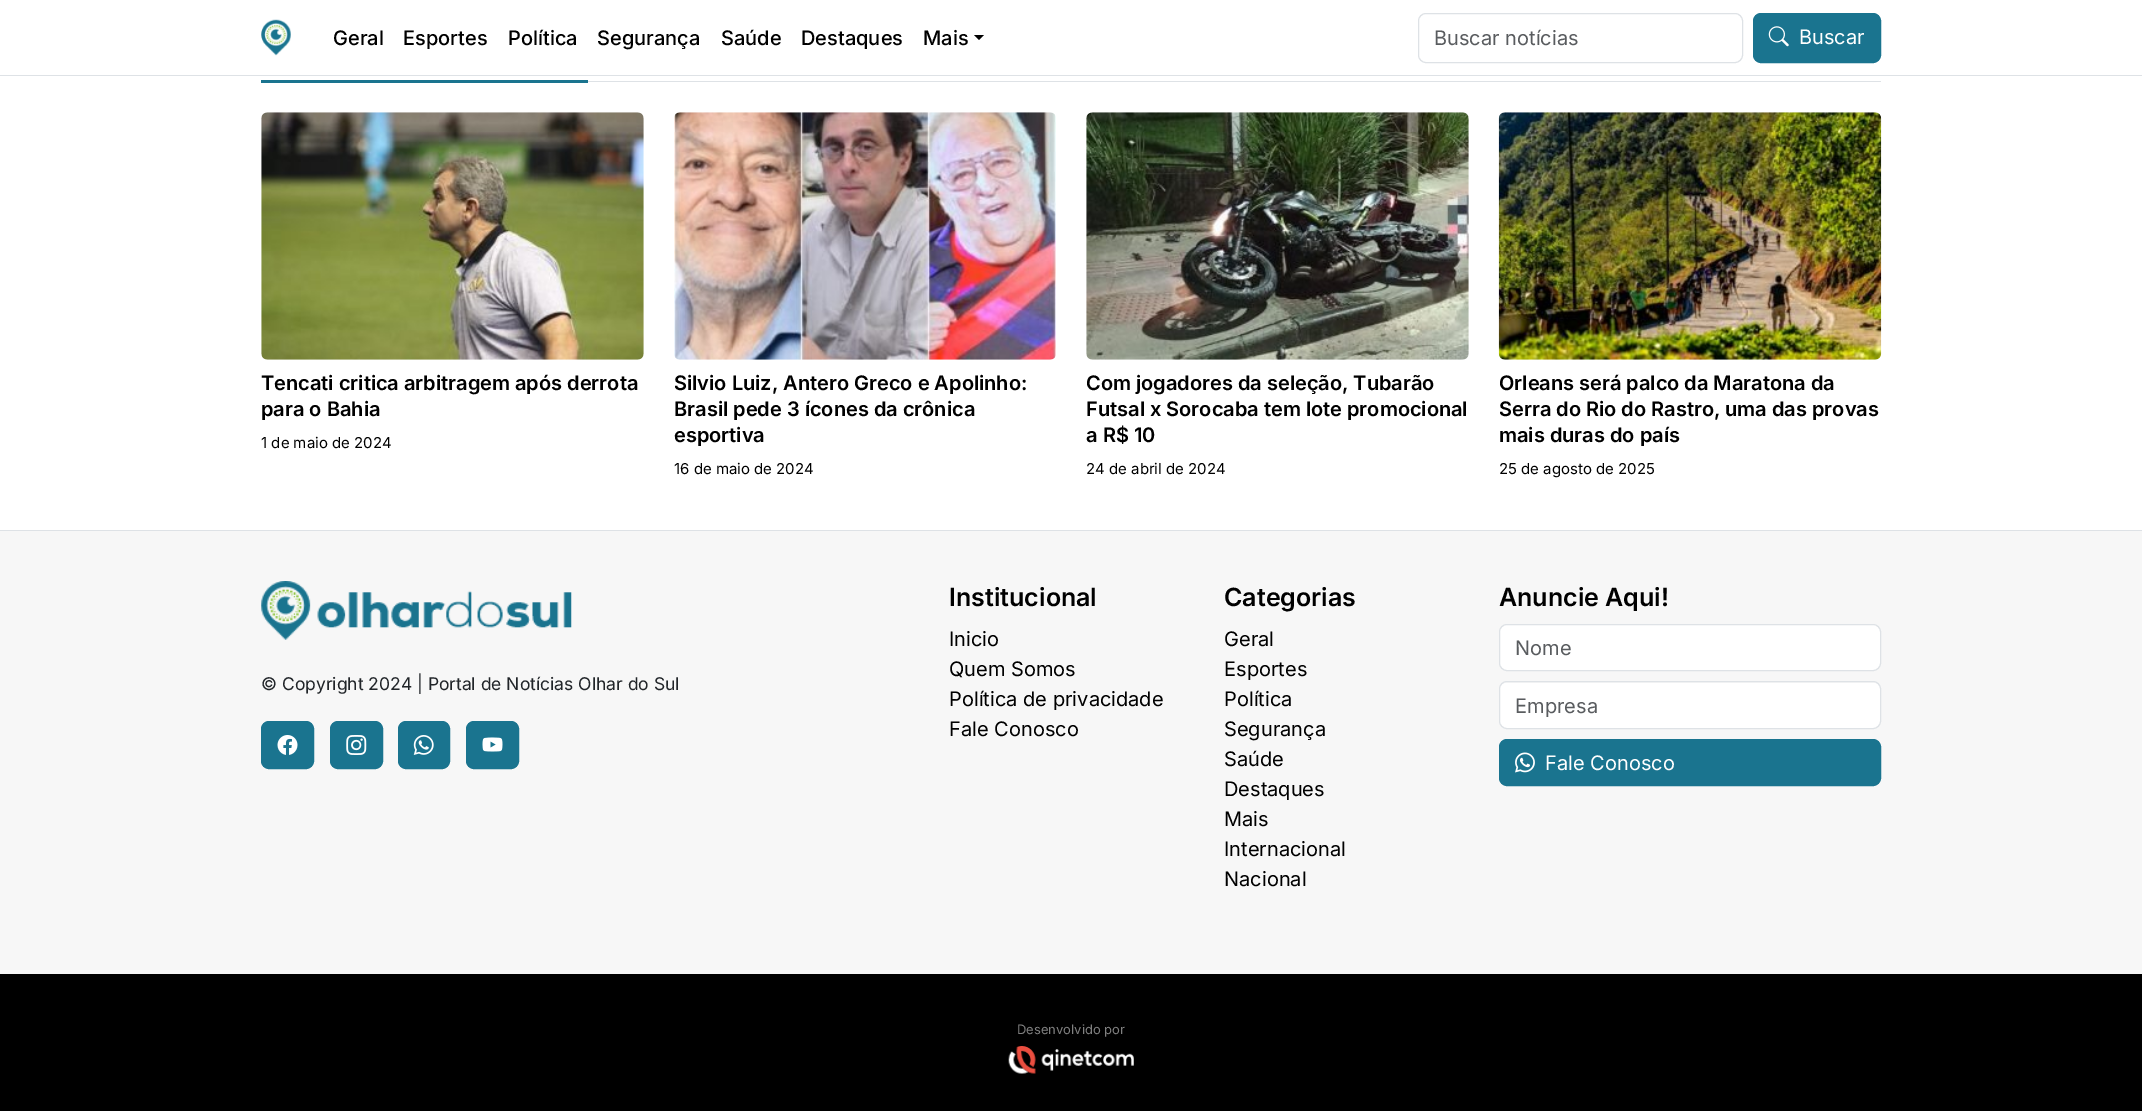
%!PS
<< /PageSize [2142 1111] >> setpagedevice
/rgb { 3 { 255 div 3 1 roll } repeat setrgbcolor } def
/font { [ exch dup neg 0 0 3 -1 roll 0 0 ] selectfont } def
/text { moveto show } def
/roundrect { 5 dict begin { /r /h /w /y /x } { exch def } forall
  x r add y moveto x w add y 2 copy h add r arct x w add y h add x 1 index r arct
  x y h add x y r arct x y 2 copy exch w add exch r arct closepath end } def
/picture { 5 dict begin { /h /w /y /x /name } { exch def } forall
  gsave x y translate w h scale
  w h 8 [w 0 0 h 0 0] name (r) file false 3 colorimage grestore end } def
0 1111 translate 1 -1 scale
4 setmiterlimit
255 255 255 rgb
0 0 2142 1111 rectfill
222 226 230 rgb
0 75 2142 1 rectfill
(img_01.rgb) 261 19 30 37 picture
0 0 0 rgb
974 35 moveto 10 0 rlineto -5 5 rlineto closepath fill
222 226 230 rgb
1418.5 13.5 324 49 7.5 roundrect stroke
26 116 143 rgb
1753.5 13.5 127 49 7.5 roundrect gsave fill grestore
stroke
(img_02.rgb) 1768 26 21 21 picture
261 80 327 3 rectfill
222 226 230 rgb
588 81 1293 1 rectfill
(img_03.rgb) 261 112 383 248 picture
(img_04.rgb) 674 112 382 248 picture
(img_05.rgb) 1086 112 383 248 picture
(img_06.rgb) 1498 112 384 248 picture
247 247 247 rgb
0 531 2142 443 rectfill
222 226 230 rgb
0 530 2142 1 rectfill
(img_07.rgb) 261 581 311 59 picture
26 116 143 rgb
261.5 721.5 52 47 7.5 roundrect gsave fill grestore
stroke
(img_08.rgb) 277 735 21 20 picture
330.5 721.5 52 47 7.5 roundrect gsave fill grestore
stroke
(img_09.rgb) 346 735 21 20 picture
398.5 721.5 51 47 7.5 roundrect gsave fill grestore
stroke
(img_10.rgb) 413 735 21 20 picture
466.5 721.5 52 47 7.5 roundrect gsave fill grestore
stroke
(img_11.rgb) 482 737 21 15 picture
255 255 255 rgb
1500 625 380 45 6 roundrect fill
222 226 230 rgb
1499.5 624.5 381 46 7.5 roundrect stroke
255 255 255 rgb
1500 683 380 45 6 roundrect fill
222 226 230 rgb
1499.5 681.5 381 47 7.5 roundrect stroke
26 116 143 rgb
1499.5 739.5 381 46 7.5 roundrect gsave fill grestore
stroke
(img_12.rgb) 1515 752 20 21 picture
0 0 0 rgb
0 974 2142 137 rectfill
(img_13.rgb) 1008 1046 126 28 picture
/Inter-Medium 20 font
(Geral) 333 45 text
(Esportes) 403 45 text
(Política) 508 45 text
(Segurança) 597 45 text
(Saúde) 721 45 text
(Destaques) 801 45 text
(Mais) 923 45 text
/Inter-Regular 20 font
89 92 95 rgb
(Buscar notícias) 1434 45 text
255 255 255 rgb
(Buscar) 1799 44 text
/Inter-SemiBold 20 font
0 0 0 rgb
(Tencati critica arbitragem após derrota) 261 390 text
(para o Bahia) 261 416 text
/Inter-Regular 15 font
(1 de maio de 2024) 261 448 text
/Inter-SemiBold 20 font
(Silvio Luiz, Antero Greco e Apolinho:) 674 390 text
(Brasil pede 3 ícones da crônica) 674 416 text
(esportiva) 674 442 text
/Inter-Regular 15 font
(16 de maio de 2024) 674 474 text
/Inter-SemiBold 20 font
(Com jogadores da seleção, Tubarão) 1086 390 text
(Futsal x Sorocaba tem lote promocional) 1086 416 text
(a R$ 10) 1086 442 text
/Inter-Regular 15 font
(24 de abril de 2024) 1086 474 text
/Inter-SemiBold 20 font
(Orleans será palco da Maratona da) 1499 390 text
(Serra do Rio do Rastro, uma das provas) 1499 416 text
(mais duras do país) 1499 442 text
/Inter-Regular 15 font
(25 de agosto de 2025) 1499 474 text
/Inter-Regular 17.5 font
33 37 41 rgb
(© Copyright 2024 | Portal de Notícias Olhar do Sul) 261 690 text
/Inter-SemiBold 25 font
0 0 0 rgb
(Institucional) 949 606 text
/Inter-Regular 20 font
(Inicio) 949 646 text
(Quem Somos) 949 676 text
(Política de privacidade) 949 706 text
(Fale Conosco) 949 736 text
/Inter-SemiBold 25 font
(Categorias) 1224 606 text
/Inter-Regular 20 font
(Geral) 1224 646 text
(Esportes) 1224 676 text
(Política) 1224 706 text
(Segurança) 1224 736 text
(Saúde) 1224 766 text
(Destaques) 1224 796 text
(Mais) 1224 826 text
(Internacional) 1224 856 text
(Nacional) 1224 886 text
/Inter-SemiBold 25 font
(Anuncie Aqui!) 1499 606 text
/Inter-Regular 20 font
89 92 95 rgb
(Nome) 1515 655 text
(Empresa) 1515 713 text
255 255 255 rgb
(Fale Conosco) 1545 770 text
/Inter-Regular 13 font
128 128 128 rgb
(Desenvolvido por) 1017 1034 text
showpage
